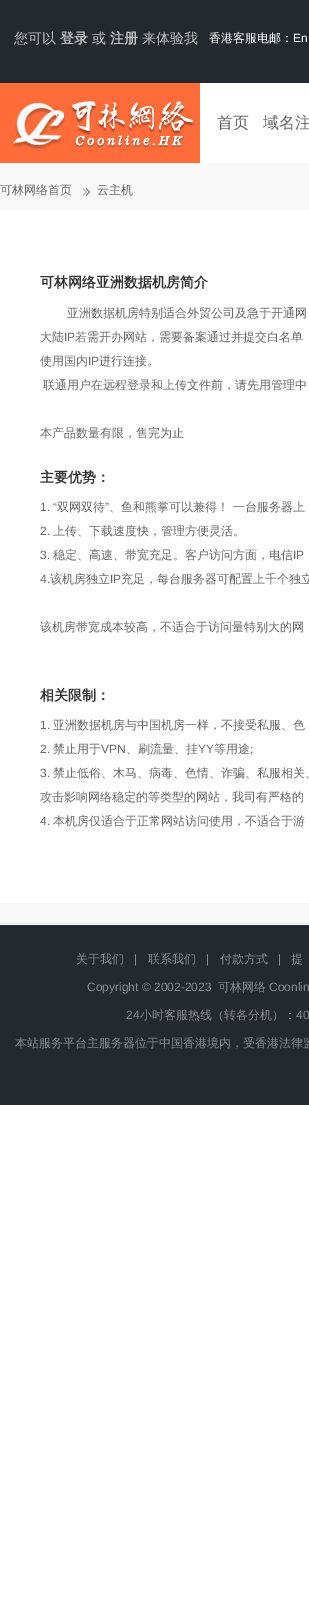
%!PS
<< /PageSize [309 1621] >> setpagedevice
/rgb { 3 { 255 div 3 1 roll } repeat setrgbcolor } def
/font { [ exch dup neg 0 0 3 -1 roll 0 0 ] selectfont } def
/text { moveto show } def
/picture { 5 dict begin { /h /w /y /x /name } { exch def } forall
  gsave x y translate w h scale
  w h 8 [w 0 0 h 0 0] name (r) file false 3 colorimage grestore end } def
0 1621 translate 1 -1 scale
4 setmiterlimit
255 255 255 rgb
0 0 309 1621 rectfill
36 41 47 rgb
0 0 309 83 rectfill
255 108 58 rgb
0 83 200 80 rectfill
(img_01.rgb) 12 101 182 48 picture
248 248 248 rgb
0 163 309 760 rectfill
(img_02.rgb) 83 188 7 8 picture
255 255 255 rgb
0 210 309 693 rectfill
36 41 47 rgb
0 925 309 180 rectfill
228 228 228 rgb
0 923 309 1 rectfill
/WenQuanYiZenHei-Medium 14 font
192 192 192 rgb
(您可以) 14 43 text
/WenQuanYiZenHei-Bold 14 font
(登录) 60 43 text
/WenQuanYiZenHei-Medium 14 font
(或) 92 43 text
/WenQuanYiZenHei-Bold 14 font
(注册) 110 43 text
/WenQuanYiZenHei-Medium 14 font
(来体验我) 142 43 text
/WenQuanYiZenHei-Medium 12 font
255 255 255 rgb
(香港客服电邮：) 209 42 text
/LiberationSans-Regular 12 font
(En) 293 42 text
/WenQuanYiZenHei-Medium 16 font
102 102 102 rgb
(首页) 217 128 text
(域名注) 263 128 text
/WenQuanYiZenHei-Medium 12 font
(可林网络首页) 0 194 text
(云主机) 97 194 text
/WenQuanYiZenHei-Bold 14 font
51 51 51 rgb
(可林网络亚洲数据机房简介) 40 287 text
/WenQuanYiZenHei-Medium 12 font
102 102 102 rgb
(亚洲数据机房特别适合外贸公司及急于开通网) 67 317 text
(大陆) 40 341 text
/LiberationSans-Regular 12 font
(IP) 64 341 text
/WenQuanYiZenHei-Medium 12 font
(若需开办网站，需要备案通过并提交白名单) 75 341 text
(使用国内) 40 365 text
/LiberationSans-Regular 12 font
(IP) 88 365 text
/WenQuanYiZenHei-Medium 12 font
(进行连接。) 99 365 text
(联通用户在远程登录和上传文件前，请先用管理中) 43 389 text
(本产品数量有限，售完为止) 40 437 text
/WenQuanYiZenHei-Bold 14 font
51 51 51 rgb
(主要优势：) 40 482 text
/LiberationSans-Regular 12 font
102 102 102 rgb
(1. “) 40 511 text
/WenQuanYiZenHei-Medium 12 font
(双网双待) 57 511 text
/LiberationSans-Regular 12 font
(”) 105 511 text
/WenQuanYiZenHei-Medium 12 font
(、鱼和熊掌可以兼得！ 一台服务器上) 109 511 text
/LiberationSans-Regular 12 font
(2.) 40 535 text
/WenQuanYiZenHei-Medium 12 font
(上传、下载速度快，管理方便灵活。) 53 535 text
/LiberationSans-Regular 12 font
(3.) 40 559 text
/WenQuanYiZenHei-Medium 12 font
(稳定、高速、带宽充足。客户访问方面，电信) 53 559 text
/LiberationSans-Regular 12 font
(IP) 293 559 text
(4.) 40 583 text
/WenQuanYiZenHei-Medium 12 font
(该机房独立) 50 583 text
/LiberationSans-Regular 12 font
(IP) 110 583 text
/WenQuanYiZenHei-Medium 12 font
(充足，每台服务器可配置上千个独立) 121 583 text
(该机房带宽成本较高，不适合于访问量特别大的网) 40 631 text
/WenQuanYiZenHei-Bold 14 font
51 51 51 rgb
(相关限制：) 40 700 text
/LiberationSans-Regular 12 font
102 102 102 rgb
(1.) 40 729 text
/WenQuanYiZenHei-Medium 12 font
(亚洲数据机房与中国机房一样，不接受私服、色) 53 729 text
/LiberationSans-Regular 12 font
(2.) 40 753 text
/WenQuanYiZenHei-Medium 12 font
(禁止用于) 53 753 text
/LiberationSans-Regular 12 font
(VPN) 101 753 text
/WenQuanYiZenHei-Medium 12 font
(、刷流量、挂) 126 753 text
/LiberationSans-Regular 12 font
(YY) 198 753 text
/WenQuanYiZenHei-Medium 12 font
(等用途) 214 753 text
/LiberationSans-Regular 12 font
(;) 250 753 text
(3.) 40 777 text
/WenQuanYiZenHei-Medium 12 font
(禁止低俗、木马、病毒、色情、诈骗、私服相关、) 53 777 text
(攻击影响网络稳定的等类型的网站，我司有严格的) 40 801 text
/LiberationSans-Regular 12 font
(4.) 40 825 text
/WenQuanYiZenHei-Medium 12 font
(本机房仅适合于正常网站访问使用，不适合于游) 53 825 text
137 139 146 rgb
(关于我们) 76 963 text
/LiberationSans-Regular 12 font
(|) 134 963 text
/WenQuanYiZenHei-Medium 12 font
(联系我们) 148 963 text
/LiberationSans-Regular 12 font
(|) 206 963 text
/WenQuanYiZenHei-Medium 12 font
(付款方式) 220 963 text
/LiberationSans-Regular 12 font
(|) 278 963 text
/WenQuanYiZenHei-Medium 12 font
(提) 291 963 text
/LiberationSans-Regular 12 font
(Copyright © 2002-2023) 87 991 text
/WenQuanYiZenHei-Medium 12 font
(可林网络) 218 991 text
/LiberationSans-Regular 12 font
(Coonlin) 269 991 text
(24) 126 1019 text
/WenQuanYiZenHei-Medium 12 font
(小时客服热线（转各分机）：) 140 1019 text
/LiberationSans-Regular 12 font
(40) 296 1019 text
/WenQuanYiZenHei-Medium 12 font
(本站服务平台主服务器位于中国香港境内，受香港法律监) 15 1047 text
showpage
